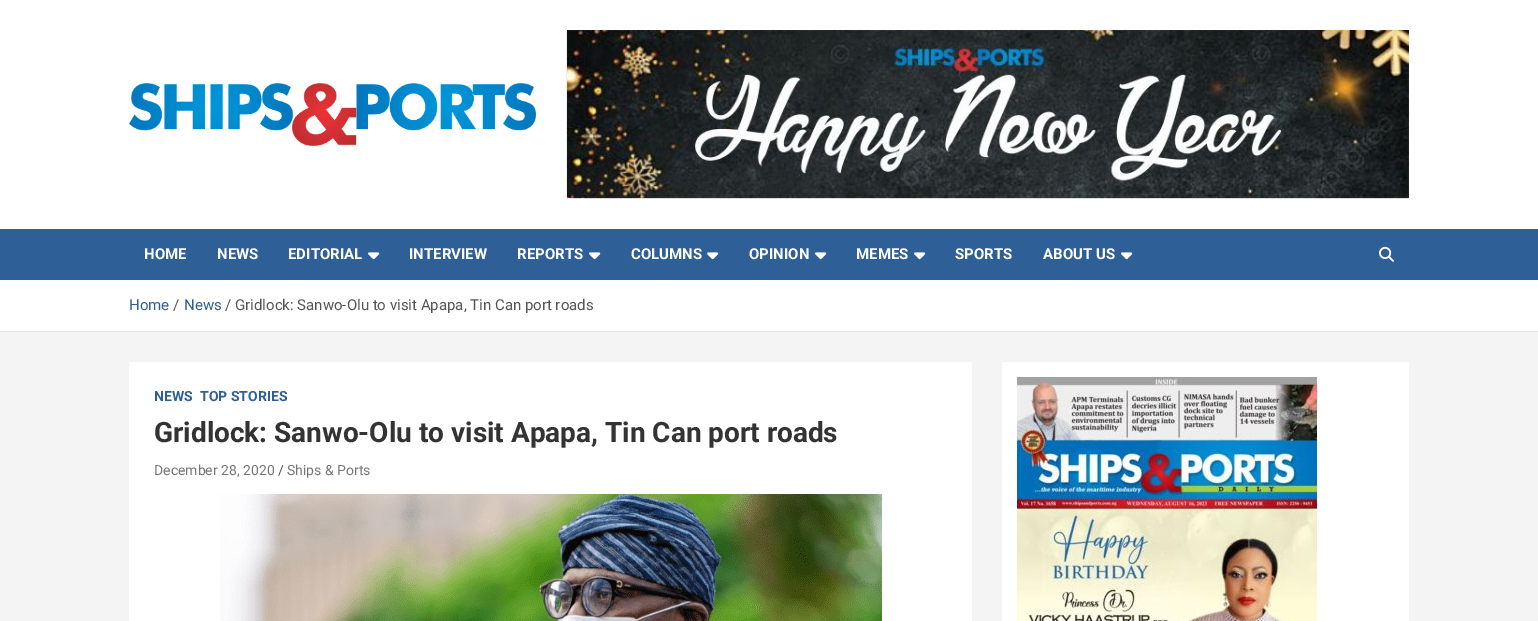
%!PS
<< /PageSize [1538 621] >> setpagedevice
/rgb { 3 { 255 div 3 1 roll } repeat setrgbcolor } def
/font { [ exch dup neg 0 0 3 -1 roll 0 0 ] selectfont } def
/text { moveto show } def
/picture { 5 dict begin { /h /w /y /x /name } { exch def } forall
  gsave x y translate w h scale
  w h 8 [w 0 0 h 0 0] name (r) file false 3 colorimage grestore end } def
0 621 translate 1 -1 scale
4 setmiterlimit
244 244 244 rgb
0 0 1538 621 rectfill
255 255 255 rgb
0 0 1538 229 rectfill
(img_01.rgb) 129 83 407 63 picture
(img_02.rgb) 566 30 843 169 picture
46 95 151 rgb
0 229 1538 51 rectfill
(img_03.rgb) 368 252 12 8 picture
(img_03.rgb) 589 252 12 8 picture
(img_03.rgb) 707 252 12 8 picture
(img_03.rgb) 815 252 12 8 picture
(img_03.rgb) 914 252 12 8 picture
(img_03.rgb) 1121 252 12 8 picture
(img_04.rgb) 1379 246 15 16 picture
255 255 255 rgb
0 280 1538 51 rectfill
230 230 230 rgb
0 331 1538 1 rectfill
255 255 255 rgb
129 362 843 259 rectfill
(img_05.rgb) 220 494 662 127 picture
1002 362 407 259 rectfill
(img_06.rgb) 1017 377 300 244 picture
/Roboto-Bold 15 font
(HOME) 144 259 text
(NEWS) 217 259 text
(EDITORIAL) 288 259 text
(INTERVIEW) 409 259 text
(REPORTS) 517 259 text
(COLUMNS) 631 259 text
(OPINION) 749 259 text
(MEMES) 856 259 text
(SPORTS) 955 259 text
(ABOUT US) 1043 259 text
/Roboto-Regular 15 font
46 95 151 rgb
(Home) 129 310 text
85 85 85 rgb
(/) 173 310 text
46 95 151 rgb
(News) 184 310 text
85 85 85 rgb
(/ Gridlock: Sanwo-Olu to visit Apapa, Tin Can port roads) 225 310 text
/Roboto-Bold 14 font
46 95 151 rgb
(NEWS) 154 401 text
(TOP STORIES) 200 401 text
/Roboto-Bold 28 font
51 51 51 rgb
(Gridlock: Sanwo-Olu to visit Apapa, Tin Can port roads) 154 442 text
/Roboto-Regular 14 font
119 119 119 rgb
(December 28, 2020) 154 475 text
85 85 85 rgb
(/) 278 475 text
119 119 119 rgb
(Ships & Ports) 287 475 text
showpage
